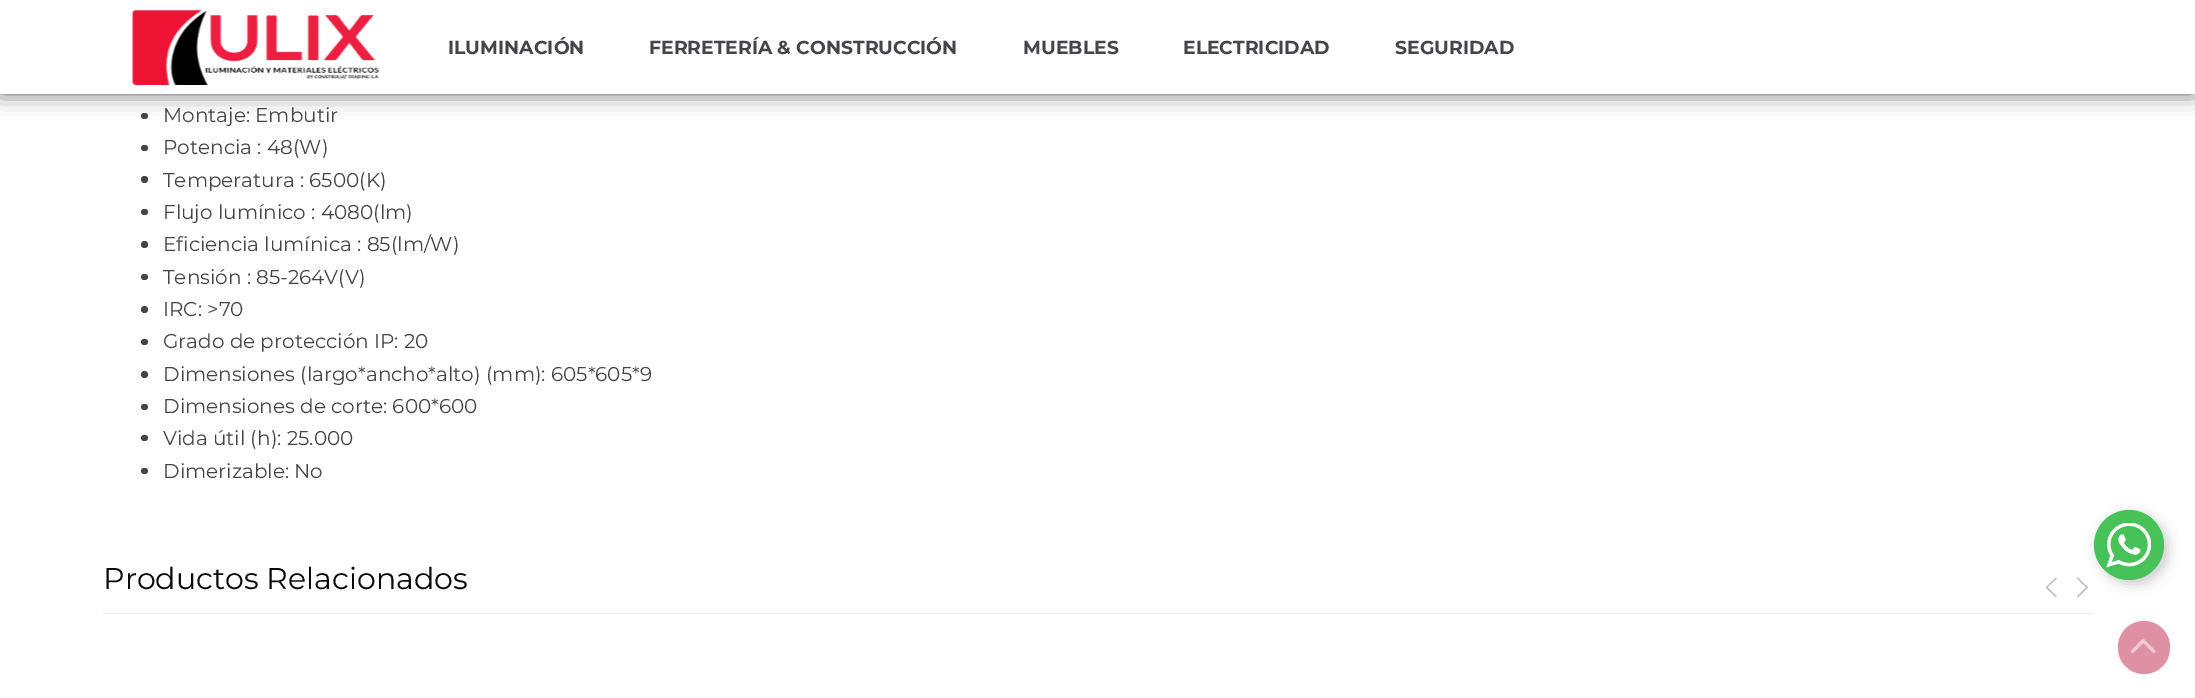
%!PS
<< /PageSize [2195 698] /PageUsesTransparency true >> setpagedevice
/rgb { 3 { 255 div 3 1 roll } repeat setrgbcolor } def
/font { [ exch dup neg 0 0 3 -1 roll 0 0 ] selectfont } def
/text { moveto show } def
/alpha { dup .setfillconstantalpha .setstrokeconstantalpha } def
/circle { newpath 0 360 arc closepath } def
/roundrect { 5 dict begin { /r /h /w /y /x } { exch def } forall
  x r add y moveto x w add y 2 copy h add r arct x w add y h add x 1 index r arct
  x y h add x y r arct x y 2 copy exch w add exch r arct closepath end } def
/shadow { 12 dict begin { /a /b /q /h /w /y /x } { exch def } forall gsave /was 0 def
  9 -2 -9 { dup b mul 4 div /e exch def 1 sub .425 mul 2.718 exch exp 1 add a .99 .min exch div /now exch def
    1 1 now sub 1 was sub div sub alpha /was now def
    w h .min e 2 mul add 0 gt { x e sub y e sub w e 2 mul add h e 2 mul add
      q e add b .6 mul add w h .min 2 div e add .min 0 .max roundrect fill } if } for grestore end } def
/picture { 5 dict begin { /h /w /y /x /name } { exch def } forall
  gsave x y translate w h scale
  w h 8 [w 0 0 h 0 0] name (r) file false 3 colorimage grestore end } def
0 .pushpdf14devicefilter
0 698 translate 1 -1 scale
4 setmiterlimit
255 255 255 rgb
0 0 2195 698 rectfill
67 69 75 rgb
141 113 7 6 3 roundrect fill
0 0 0 rgb
1 1 2193 92 0 10.5 0.66 shadow
255 255 255 rgb
0 0 2195 94 rectfill
(img_01.rgb) 132 10 248 75 picture
67 69 75 rgb
141 145 7 6 3 roundrect fill
144.5 179.5 3.5 circle fill
141 209 7 6 3 roundrect fill
144.5 244.5 3.5 circle fill
141 274 7 6 3 roundrect fill
144.5 309.5 3.5 circle fill
141 339 7 6 3 roundrect fill
144.5 374.5 3.5 circle fill
141 404 7 6 3 roundrect fill
141 435 7 6 3 roundrect fill
141 468 7 6 3 roundrect fill
230 230 230 rgb
103 613 1990 1 rectfill
(img_02.rgb) 2045 577 12 21 picture
(img_03.rgb) 2077 577 11 21 picture
0 0 0 rgb
2098 514 70 70 35 6 0.2 shadow
71 194 88 rgb
2129 545 35 circle fill
(img_04.rgb) 2106 523 45 45 picture
223 145 163 rgb
2118 621 52 53 26 roundrect fill
(img_05.rgb) 2130 638 26 16 picture
/Montserrat-Bold 18.75 font
67 69 75 rgb
(ILUMINACIÓN) 448 54 text
(FERRETERÍA & CONSTRUCCIÓN) 649 54 text
(MUEBLES) 1023 54 text
(ELECTRICIDAD) 1183 54 text
(SEGURIDAD) 1395 54 text
/Montserrat-Regular 20 font
(Montaje: Embutir) 163 122 text
(Potencia : 48\(W\)) 163 154 text
(Temperatura : 6500\(K\)) 163 187 text
(Flujo lumínico : 4080\(lm\)) 163 219 text
(Eficiencia lumínica : 85\(lm/W\)) 163 251 text
(Tensión : 85-264V\(V\)) 163 284 text
(IRC: >70) 163 316 text
(Grado de protección IP: 20) 163 348 text
(Dimensiones \(largo*ancho*alto\) \(mm\): 605*605*9) 163 381 text
(Dimensiones de corte: 600*600) 163 413 text
(Vida útil \(h\): 25.000) 163 445 text
(Dimerizable: No) 163 478 text
/Montserrat-Regular 30 font
9 9 9 rgb
(Productos Relacionados) 103 589 text
.poppdf14devicefilter showpage
